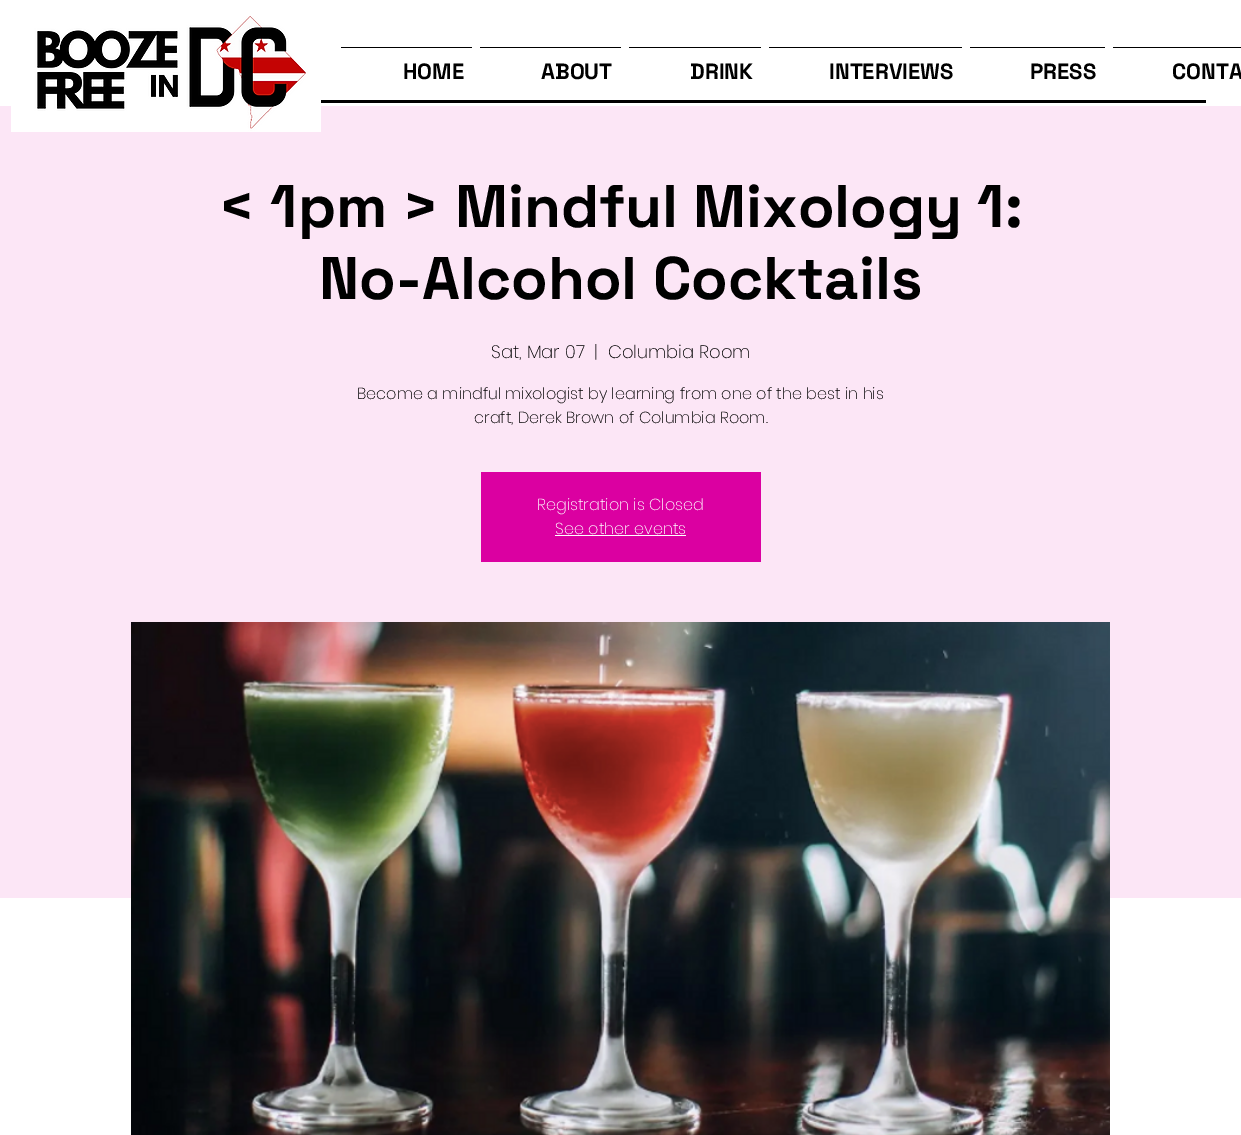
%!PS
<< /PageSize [1241 1135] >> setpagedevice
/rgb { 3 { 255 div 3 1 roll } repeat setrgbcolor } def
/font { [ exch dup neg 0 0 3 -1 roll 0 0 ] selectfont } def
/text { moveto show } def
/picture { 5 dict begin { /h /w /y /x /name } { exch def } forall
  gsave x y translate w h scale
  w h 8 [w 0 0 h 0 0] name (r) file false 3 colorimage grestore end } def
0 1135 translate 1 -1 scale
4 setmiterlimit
255 255 255 rgb
0 0 1241 1135 rectfill
252 230 246 rgb
0 106 1241 792 rectfill
(img_01.rgb) 11 16 310 116 picture
0 0 0 rgb
341 47 131 1 rectfill
480 47 141 1 rectfill
629 47 132 1 rectfill
769 47 193 1 rectfill
970 47 135 1 rectfill
1113 47 128 1 rectfill
321 100 885 3 rectfill
219 0 161 rgb
481 472 280 90 rectfill
255 255 255 rgb
555 535 131 1 rectfill
(img_02.rgb) 131 622 979 513 picture
/SpaceGrotesk-Bold 22 font
0 0 0 rgb
(HOME) 403 79 text
(ABOUT) 541 79 text
(DRINK) 690 79 text
(INTERVIEWS) 829 79 text
(PRESS) 1030 79 text
(CONTA) 1172 79 text
/SpaceGrotesk-Bold 60 font
(< 1pm > Mindful Mixology 1:) 218 227 text
(No-Alcohol Cocktails) 319 299 text
/Poppins-ExtraLight 18 font
(Sat, Mar 07) 491 358 text
(|) 594 358 text
(Columbia Room) 608 358 text
/Poppins-ExtraLight 16 font
(Become a mindful mixologist by learning from one of the best in his) 357 399 text
(craft, Derek Brown of Columbia Room.) 474 423 text
255 255 255 rgb
(Registration is Closed) 537 510 text
(See other events) 555 534 text
showpage
